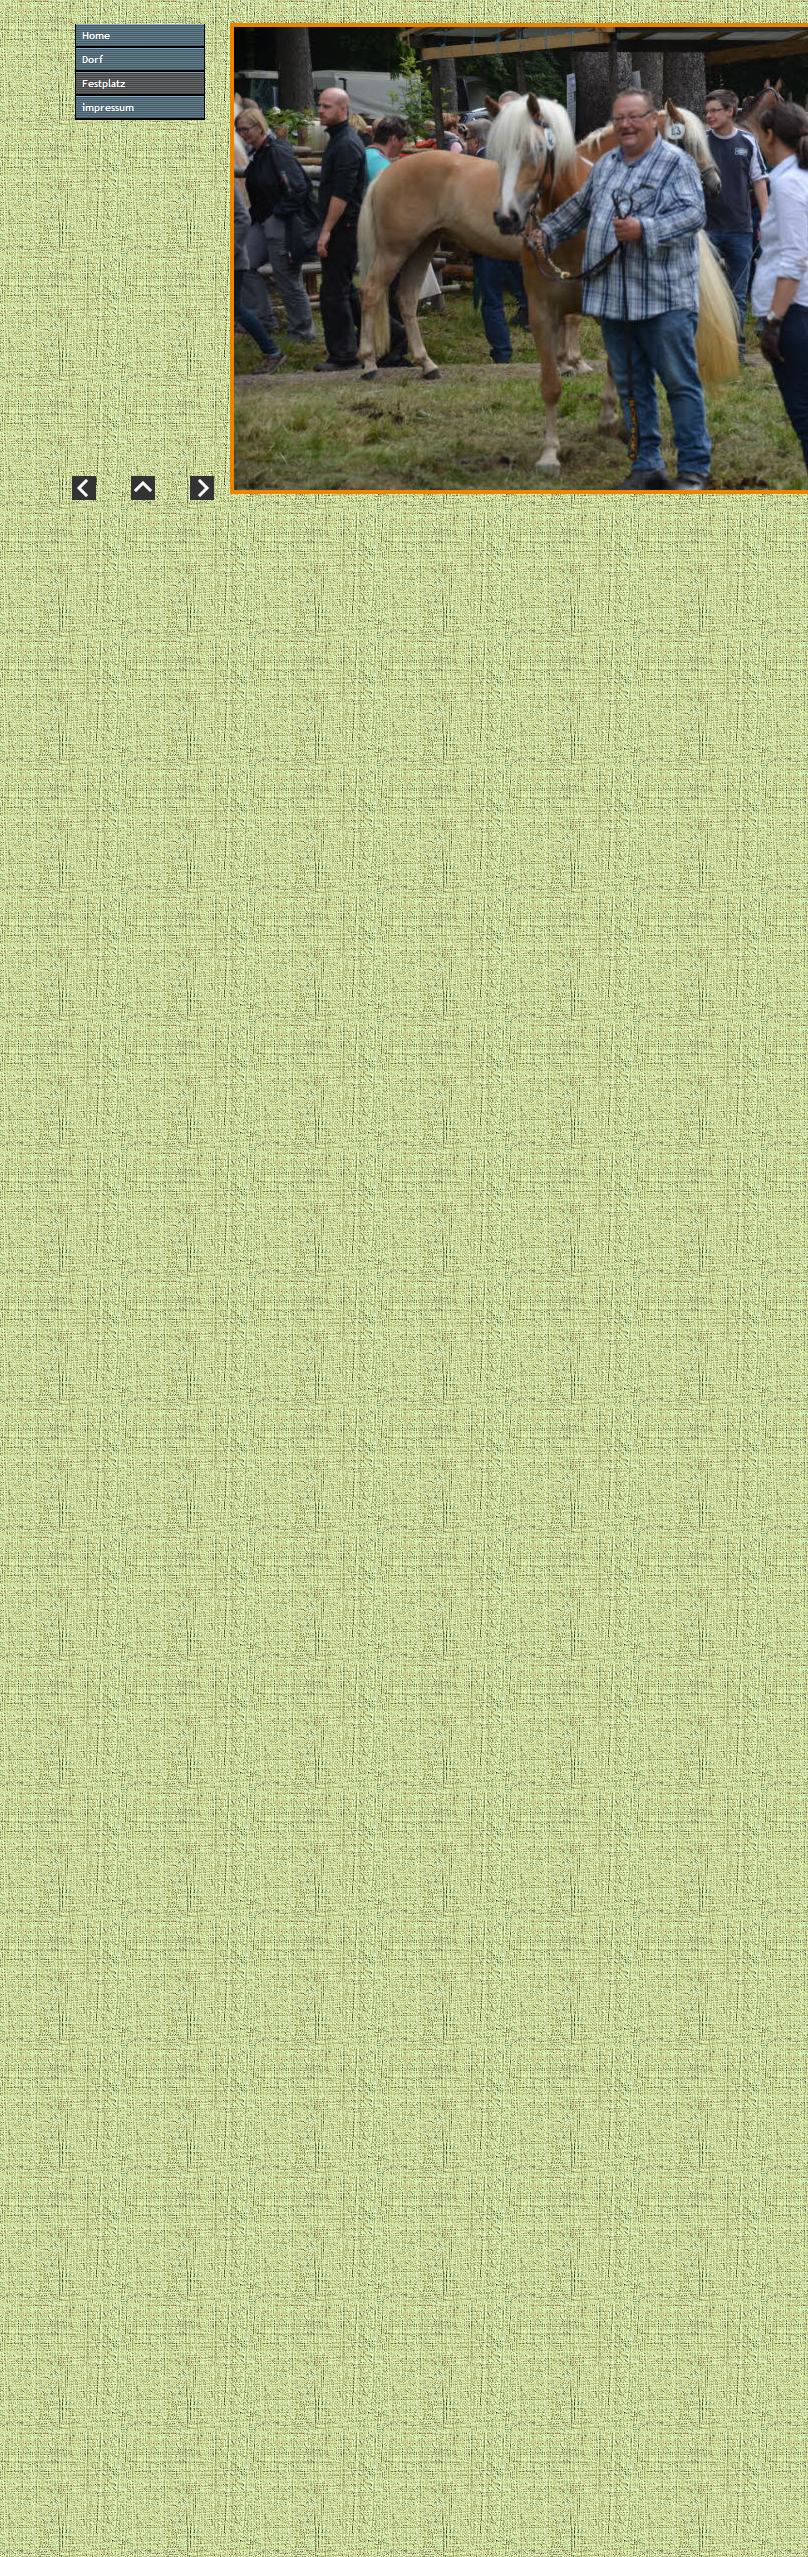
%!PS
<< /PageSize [808 2557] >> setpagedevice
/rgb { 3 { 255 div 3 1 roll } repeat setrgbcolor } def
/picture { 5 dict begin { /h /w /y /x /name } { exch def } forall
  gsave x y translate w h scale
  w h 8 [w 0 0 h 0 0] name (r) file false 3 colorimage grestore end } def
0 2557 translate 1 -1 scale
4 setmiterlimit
255 255 255 rgb
0 0 808 2557 rectfill
(img_01.rgb) 0 0 808 2557 picture
(img_02.rgb) 75 24 130 24 picture
(img_03.rgb) 75 48 130 24 picture
(img_04.rgb) 75 72 130 24 picture
(img_05.rgb) 75 96 130 24 picture
235 133 0 rgb
230 23 4 467 rectfill
(img_06.rgb) 234 27 574 463 picture
234 23 574 4 rectfill
230 490 578 4 rectfill
(img_07.rgb) 72 476 24 24 picture
(img_08.rgb) 131 476 24 24 picture
(img_09.rgb) 190 476 24 24 picture
showpage
